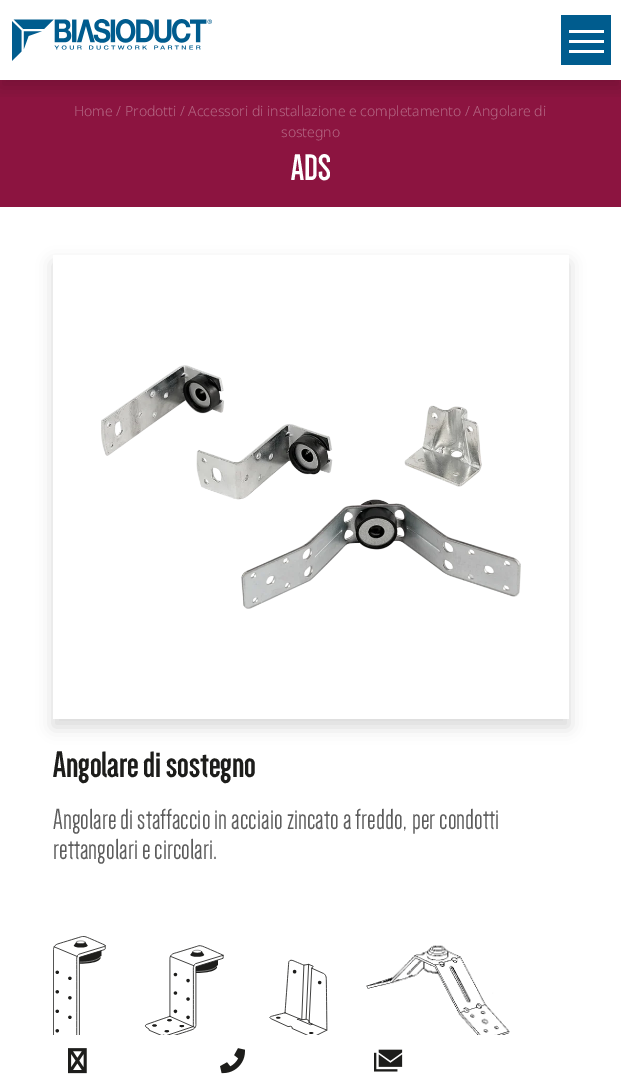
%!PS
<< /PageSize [621 1085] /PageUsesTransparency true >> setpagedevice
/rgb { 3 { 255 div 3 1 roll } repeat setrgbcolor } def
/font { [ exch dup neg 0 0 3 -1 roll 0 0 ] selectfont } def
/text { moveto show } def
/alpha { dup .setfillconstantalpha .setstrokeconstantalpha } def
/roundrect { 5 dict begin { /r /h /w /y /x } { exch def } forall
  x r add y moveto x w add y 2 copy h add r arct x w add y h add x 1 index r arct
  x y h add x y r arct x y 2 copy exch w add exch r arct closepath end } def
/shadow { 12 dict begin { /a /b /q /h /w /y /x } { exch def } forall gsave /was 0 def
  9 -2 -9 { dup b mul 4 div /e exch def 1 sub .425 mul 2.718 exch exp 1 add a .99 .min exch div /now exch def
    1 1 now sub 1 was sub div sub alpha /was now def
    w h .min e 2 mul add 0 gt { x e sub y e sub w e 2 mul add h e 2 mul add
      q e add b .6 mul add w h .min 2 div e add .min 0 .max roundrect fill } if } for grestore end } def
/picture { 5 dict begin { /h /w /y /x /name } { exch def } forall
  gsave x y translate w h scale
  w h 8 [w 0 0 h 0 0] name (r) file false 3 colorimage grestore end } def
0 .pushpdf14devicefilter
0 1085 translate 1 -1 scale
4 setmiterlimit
255 255 255 rgb
0 0 621 1085 rectfill
140 20 64 rgb
0 80 621 127 rectfill
gsave
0 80 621 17 rectclip
0 0 0 rgb
0 8 621 80 0 8 0.15 shadow
grestore
(img_01.rgb) 12 19 200 42 picture
0 92 142 rgb
561 15 50 50 rectfill
255 255 255 rgb
569 30 35 3 rectfill
569 40 35 3 rectfill
569 50 35 3 rectfill
gsave
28 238 moveto 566 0 rlineto 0 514 rlineto -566 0 rlineto closepath 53 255 moveto 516 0 rlineto 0 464 rlineto -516 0 rlineto closepath eoclip newpath
0 0 0 rgb
53 263 516 464 0 8 0.15 shadow
grestore
(img_02.rgb) 101 365 420 244 picture
(img_03.rgb) 53 936 457 99 picture
(img_04.rgb) 68 1048 19 26 picture
(img_05.rgb) 220 1048 25 26 picture
(img_06.rgb) 374 1049 29 23 picture
/NotoSans-Light 14 font
181 105 133 rgb
(Home / Prodotti / Accessori di installazione e completamento / Angolare di) 74 116 text
(sostegno) 281 137 text
/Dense-Bold 38 font
255 255 255 rgb
(ADS) 291 180 text
29 29 27 rgb
(Angolare di sostegno) 53 777 text
/Dense-Regular 30 font
92 92 92 rgb
(Angolare di staffaccio in acciaio zincato a freddo, per condotti) 53 829 text
(rettangolari e circolari.) 53 859 text
.poppdf14devicefilter showpage
